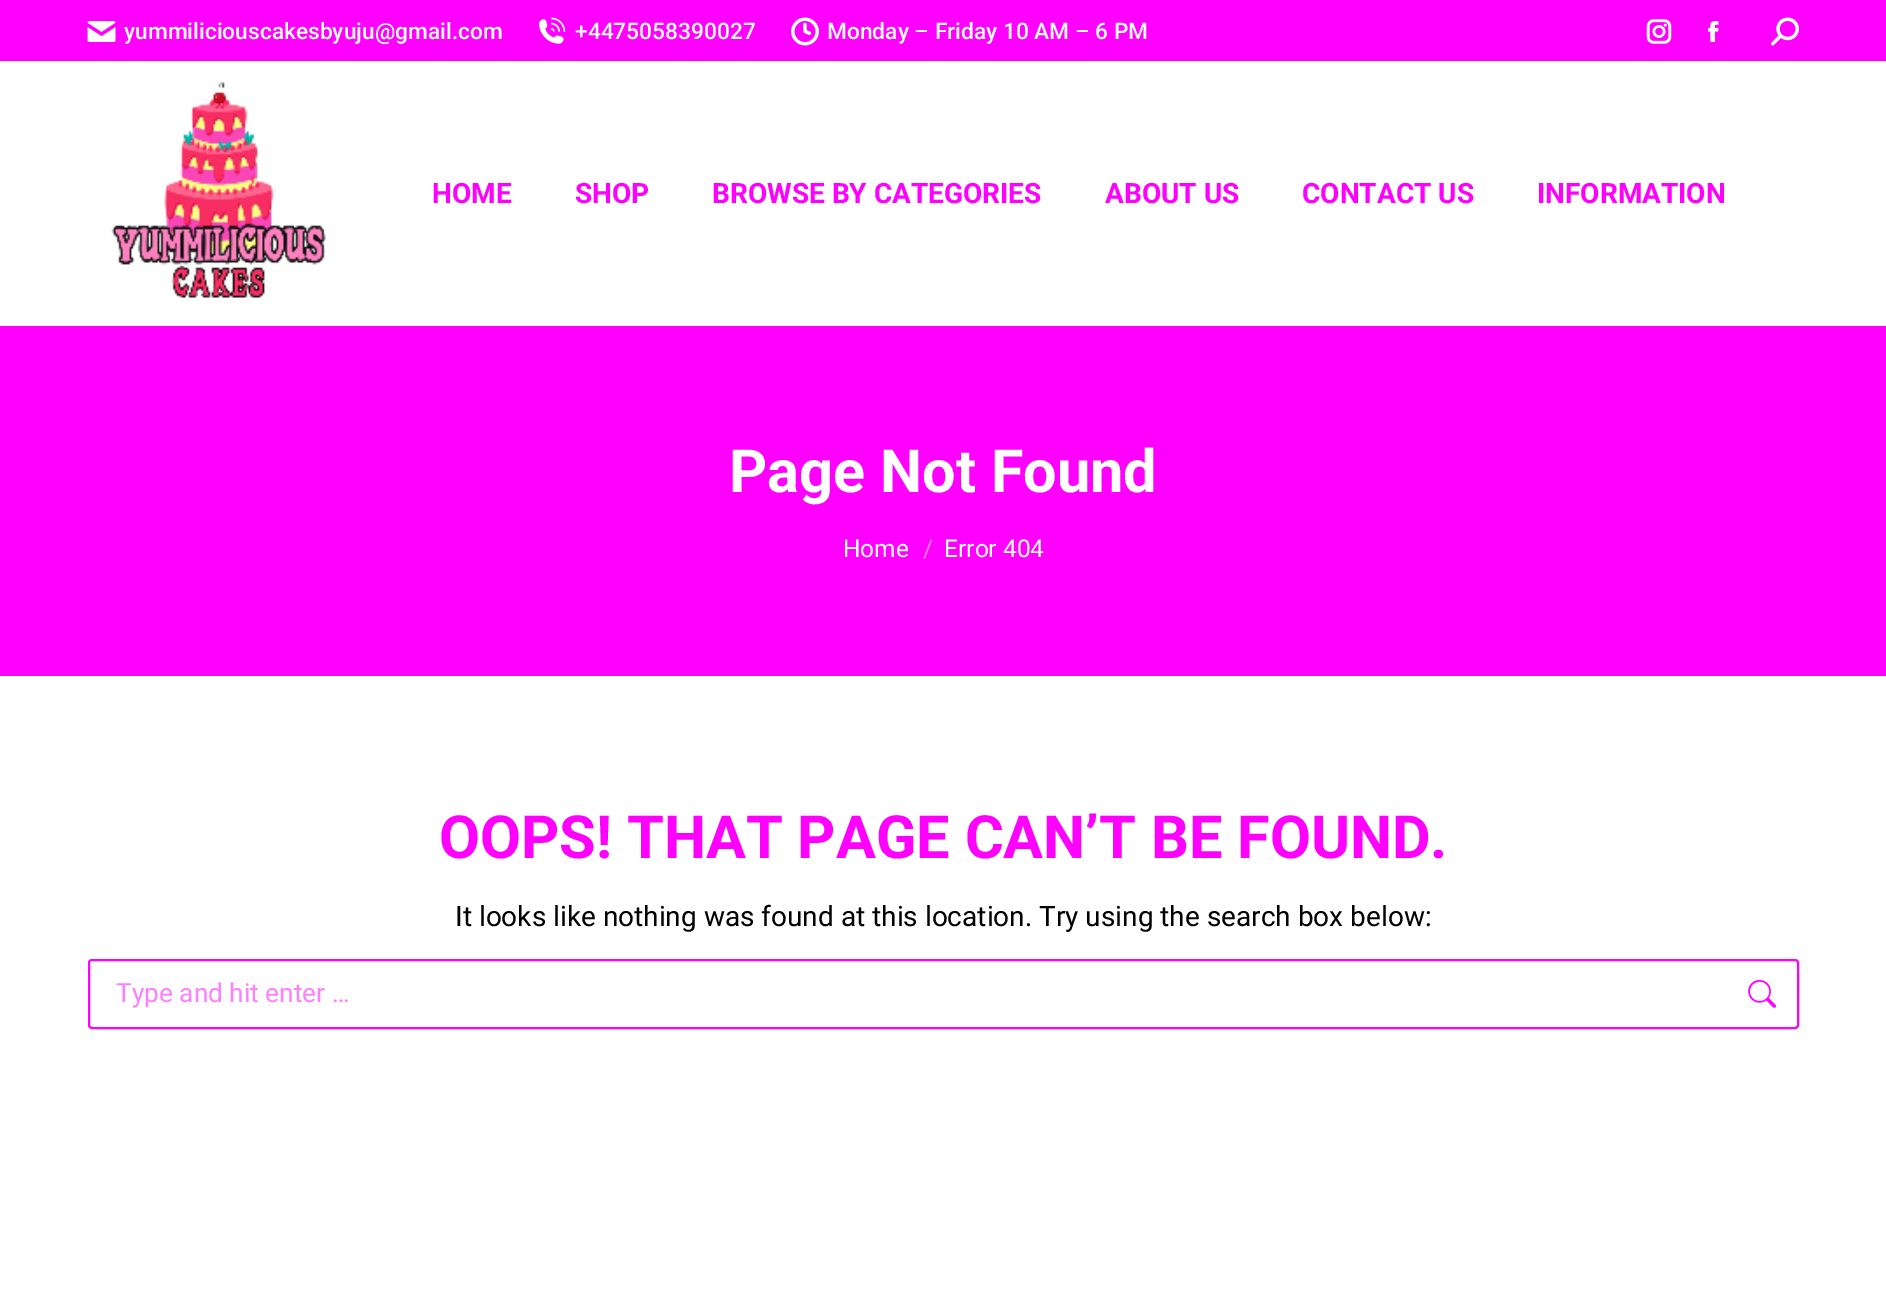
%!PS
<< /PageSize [1886 1301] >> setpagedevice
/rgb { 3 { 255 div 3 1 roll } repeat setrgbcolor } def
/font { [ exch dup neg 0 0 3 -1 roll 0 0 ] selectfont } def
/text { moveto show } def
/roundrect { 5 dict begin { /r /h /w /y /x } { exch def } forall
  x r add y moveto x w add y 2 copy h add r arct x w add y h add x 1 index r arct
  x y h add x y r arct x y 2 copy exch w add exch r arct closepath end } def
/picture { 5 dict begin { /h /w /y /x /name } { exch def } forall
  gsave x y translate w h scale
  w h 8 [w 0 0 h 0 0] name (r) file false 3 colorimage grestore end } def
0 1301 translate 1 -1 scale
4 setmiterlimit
255 255 255 rgb
0 0 1886 1301 rectfill
255 0 255 rgb
0 0 1886 61 rectfill
(img_01.rgb) 87 21 29 21 picture
(img_02.rgb) 539 17 27 27 picture
(img_03.rgb) 791 17 28 29 picture
(img_04.rgb) 1646 19 26 25 picture
(img_05.rgb) 1707 21 12 21 picture
(img_06.rgb) 1771 17 28 29 picture
(img_07.rgb) 111 81 215 218 picture
0 326 1886 350 rectfill
2 setlinewidth
89 960 1709 68 3 roundrect stroke
(img_08.rgb) 1748 980 28 28 picture
/Roboto-Medium 22.75 font
255 255 255 rgb
(yummiliciouscakesbyuju@gmail.com) 124 39 text
(+4475058390027) 575 39 text
(Monday – Friday 10 AM – 6 PM) 827 39 text
/Roboto-Bold 28 font
255 0 255 rgb
(HOME) 432 203 text
(SHOP) 575 203 text
(BROWSE BY CATEGORIES) 712 203 text
(ABOUT US) 1105 203 text
(CONTACT US) 1302 203 text
(INFORMATION) 1537 203 text
/Roboto-Bold 59.5 font
255 255 255 rgb
(Page Not Found) 729 492 text
/Roboto-Regular 24.5 font
(Home) 843 557 text
255 128 255 rgb
(/) 923 557 text
255 255 255 rgb
(Error 404) 944 557 text
/Roboto-Bold 59.5 font
255 0 255 rgb
(OOPS! THAT PAGE CAN’T BE FOUND.) 439 858 text
/Roboto-Regular 28 font
0 0 0 rgb
(It looks like nothing was found at this location. Try using the search box below:) 455 926 text
/Roboto-Regular 26.25 font
255 128 255 rgb
(Type and hit enter …) 116 1002 text
showpage
